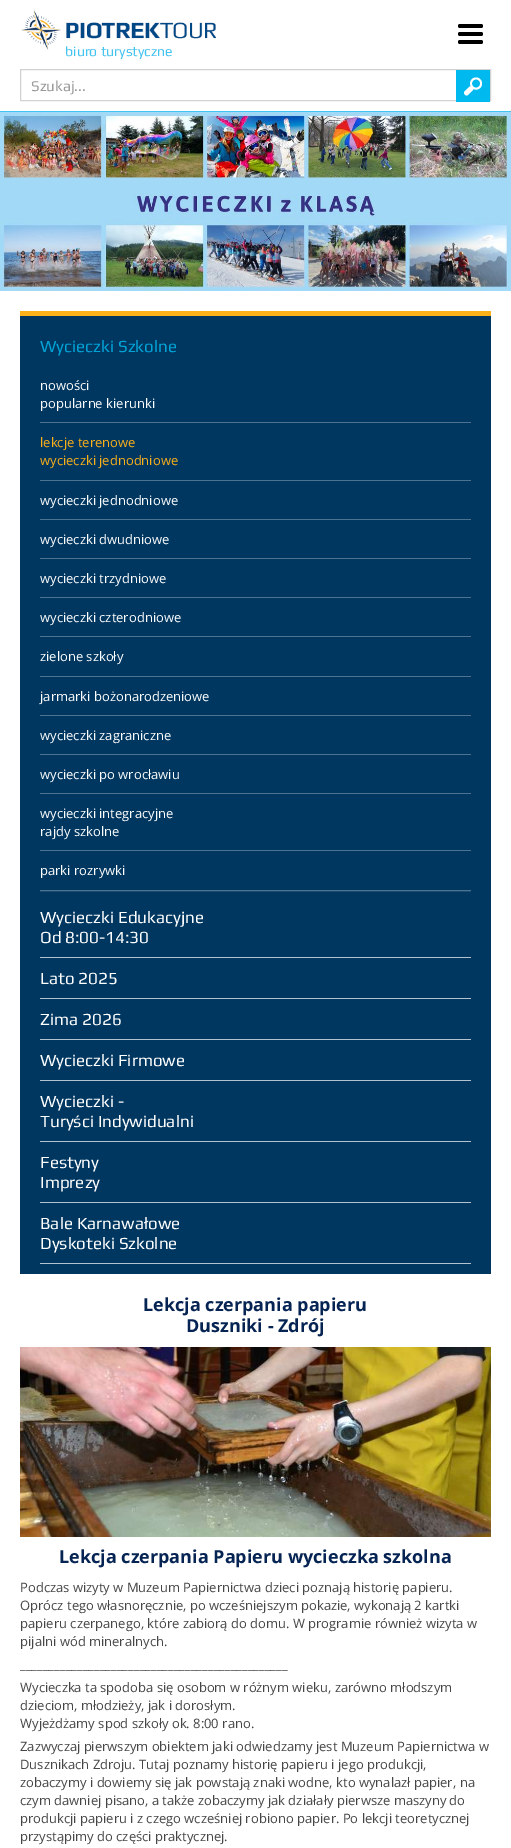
%!PS
<< /PageSize [511 1848] >> setpagedevice
/rgb { 3 { 255 div 3 1 roll } repeat setrgbcolor } def
/font { [ exch dup neg 0 0 3 -1 roll 0 0 ] selectfont } def
/text { moveto show } def
/roundrect { 5 dict begin { /r /h /w /y /x } { exch def } forall
  x r add y moveto x w add y 2 copy h add r arct x w add y h add x 1 index r arct
  x y h add x y r arct x y 2 copy exch w add exch r arct closepath end } def
/picture { 5 dict begin { /h /w /y /x /name } { exch def } forall
  gsave x y translate w h scale
  w h 8 [w 0 0 h 0 0] name (r) file false 3 colorimage grestore end } def
0 1848 translate 1 -1 scale
4 setmiterlimit
255 255 255 rgb
0 0 511 1848 rectfill
66 195 240 rgb
0 111 511 1 rectfill
(img_01.rgb) 21 10 195 40 picture
0 0 0 rgb
458 32 25 4 2 roundrect fill
458 24 25 4 2 roundrect fill
458 40 25 4 2 roundrect fill
210 210 210 rgb
20.5 69.5 470 31 rectstroke
(img_02.rgb) 456 70 34 32 picture
(img_03.rgb) 0 112 511 179 picture
0 55 97 rgb
20 316 471 958 rectfill
252 176 25 rgb
20 311 471 5 rectfill
26 75 113 rgb
40 891 431 1 rectfill
77 115 144 rgb
40 422 431 1 rectfill
40 480 431 1 rectfill
40 519 431 1 rectfill
40 558 431 1 rectfill
40 597 431 1 rectfill
40 636 431 1 rectfill
40 676 431 1 rectfill
40 715 431 1 rectfill
40 754 431 1 rectfill
40 793 431 1 rectfill
40 850 431 1 rectfill
40 890 431 1 rectfill
179 195 208 rgb
40 957 431 1 rectfill
40 998 431 1 rectfill
40 1039 431 1 rectfill
40 1080 431 1 rectfill
40 1141 431 1 rectfill
40 1202 431 1 rectfill
40 1263 431 1 rectfill
(img_04.rgb) 20 1347 471 190 picture
/Play-Regular 14 font
66 195 240 rgb
(biuro turystyczne) 65 56 text
/Play-Regular 15 font
155 155 155 rgb
(Szukaj...) 31 91 text
/Play-Regular 17 font
0 164 215 rgb
(Wycieczki Szkolne) 40 352 text
/OpenSans-Regular 13 font
255 255 255 rgb
(nowości) 40 390 text
(popularne kierunki) 40 408 text
252 176 25 rgb
(lekcje terenowe) 40 447 text
(wycieczki jednodniowe) 40 465 text
255 255 255 rgb
(wycieczki jednodniowe) 40 505 text
(wycieczki dwudniowe) 40 544 text
(wycieczki trzydniowe) 40 583 text
(wycieczki czterodniowe) 40 622 text
(zielone szkoły) 40 661 text
(jarmarki bożonarodzeniowe) 40 701 text
(wycieczki zagraniczne) 40 740 text
(wycieczki po wrocławiu) 40 779 text
(wycieczki integracyjne) 40 818 text
(rajdy szkolne) 40 836 text
(parki rozrywki) 40 875 text
/Play-Regular 17 font
(Wycieczki Edukacyjne) 40 923 text
(Od 8:00-14:30) 40 943 text
(Lato 2025) 40 984 text
(Zima 2026) 40 1025 text
(Wycieczki Firmowe) 40 1066 text
(Wycieczki -) 40 1107 text
(Turyści Indywidualni) 40 1127 text
(Festyny) 40 1168 text
(Imprezy) 40 1188 text
(Bale Karnawałowe) 40 1229 text
(Dyskoteki Szkolne) 40 1249 text
/OpenSans-Bold 18 font
5 36 83 rgb
(Lekcja czerpania papieru) 143 1311 text
(Duszniki - Zdrój) 186 1332 text
(Lekcja czerpania Papieru wycieczka szkolna) 59 1563 text
/OpenSans-Regular 13 font
69 69 69 rgb
(Podczas wizyty w Muzeum Papiernictwa dzieci poznają historię papieru.) 20 1592 text
(Oprócz tego własnoręcznie, po wcześniejszym pokazie, wykonają 2 kartki) 20 1610 text
(papieru czerpanego, które zabiorą do domu. W programie również wizyta w) 20 1628 text
(pijalni wód mineralnych.) 20 1646 text
(_______________________________________________) 20 1669 text
(Wycieczka ta spodoba się osobom w różnym wieku, zarówno młodszym) 20 1692 text
(dzieciom, młodzieży, jak i dorosłym.) 20 1710 text
(Wyjeżdżamy spod szkoły ok. 8:00 rano.) 20 1728 text
(Zazwyczaj pierwszym obiektem jaki odwiedzamy jest Muzeum Papiernictwa w) 20 1751 text
(Dusznikach Zdroju. Tutaj poznamy historię papieru i jego produkcji,) 20 1769 text
(zobaczymy i dowiemy się jak powstają znaki wodne, kto wynalazł papier, na) 20 1787 text
(czym dawniej pisano, a także zobaczymy jak działały pierwsze maszyny do) 20 1805 text
(produkcji papieru i z czego wcześniej robiono papier. Po lekcji teoretycznej) 20 1823 text
(przystąpimy do części praktycznej.) 20 1841 text
showpage
